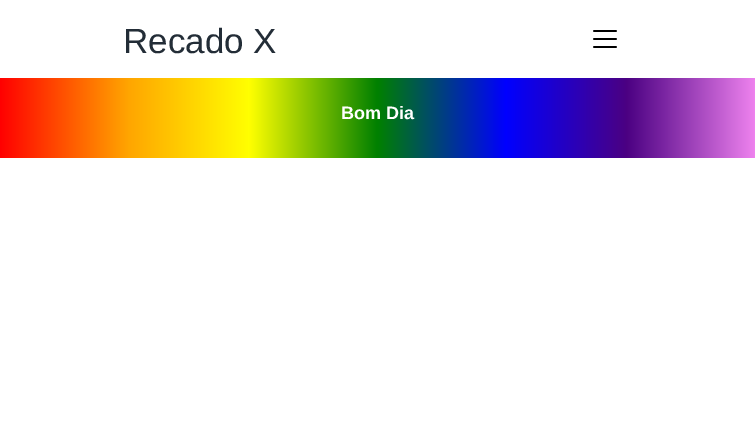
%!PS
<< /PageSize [755 446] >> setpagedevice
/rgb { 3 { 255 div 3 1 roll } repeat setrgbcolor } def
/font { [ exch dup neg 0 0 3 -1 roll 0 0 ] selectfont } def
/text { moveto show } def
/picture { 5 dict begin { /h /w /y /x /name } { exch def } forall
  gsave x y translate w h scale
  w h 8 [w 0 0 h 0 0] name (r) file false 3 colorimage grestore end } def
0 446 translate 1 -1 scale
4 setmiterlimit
255 255 255 rgb
0 0 755 446 rectfill
(img_01.rgb) 593 30 24 18 picture
gsave 0 78 moveto 755 0 rlineto 0 80 rlineto -755 0 rlineto closepath clip newpath
<< /ShadingType 2 /ColorSpace /DeviceRGB /Coords [0 118 755 118] /Extend [true true] /Function << /FunctionType 3 /Domain [0 1] /Functions [<< /FunctionType 2 /Domain [0 1] /C0 [1 0 0] /C1 [1 0.647 0] /N 1 >> << /FunctionType 2 /Domain [0 1] /C0 [1 0.647 0] /C1 [1 1 0] /N 1 >> << /FunctionType 2 /Domain [0 1] /C0 [1 1 0] /C1 [0 0.502 0] /N 1 >> << /FunctionType 2 /Domain [0 1] /C0 [0 0.502 0] /C1 [0 0 1] /N 1 >> << /FunctionType 2 /Domain [0 1] /C0 [0 0 1] /C1 [0.294 0 0.51] /N 1 >> << /FunctionType 2 /Domain [0 1] /C0 [0.294 0 0.51] /C1 [0.933 0.51 0.933] /N 1 >>] /Bounds [0.17 0.33 0.5 0.67 0.83] /Encode [0 1 0 1 0 1 0 1 0 1 0 1] >> >> shfill grestore
/LiberationSans-Regular 35 font
35 45 55 rgb
(Recado X) 123 53 text
/LiberationSans-Bold 18 font
255 255 255 rgb
(Bom Dia) 341 119 text
showpage
